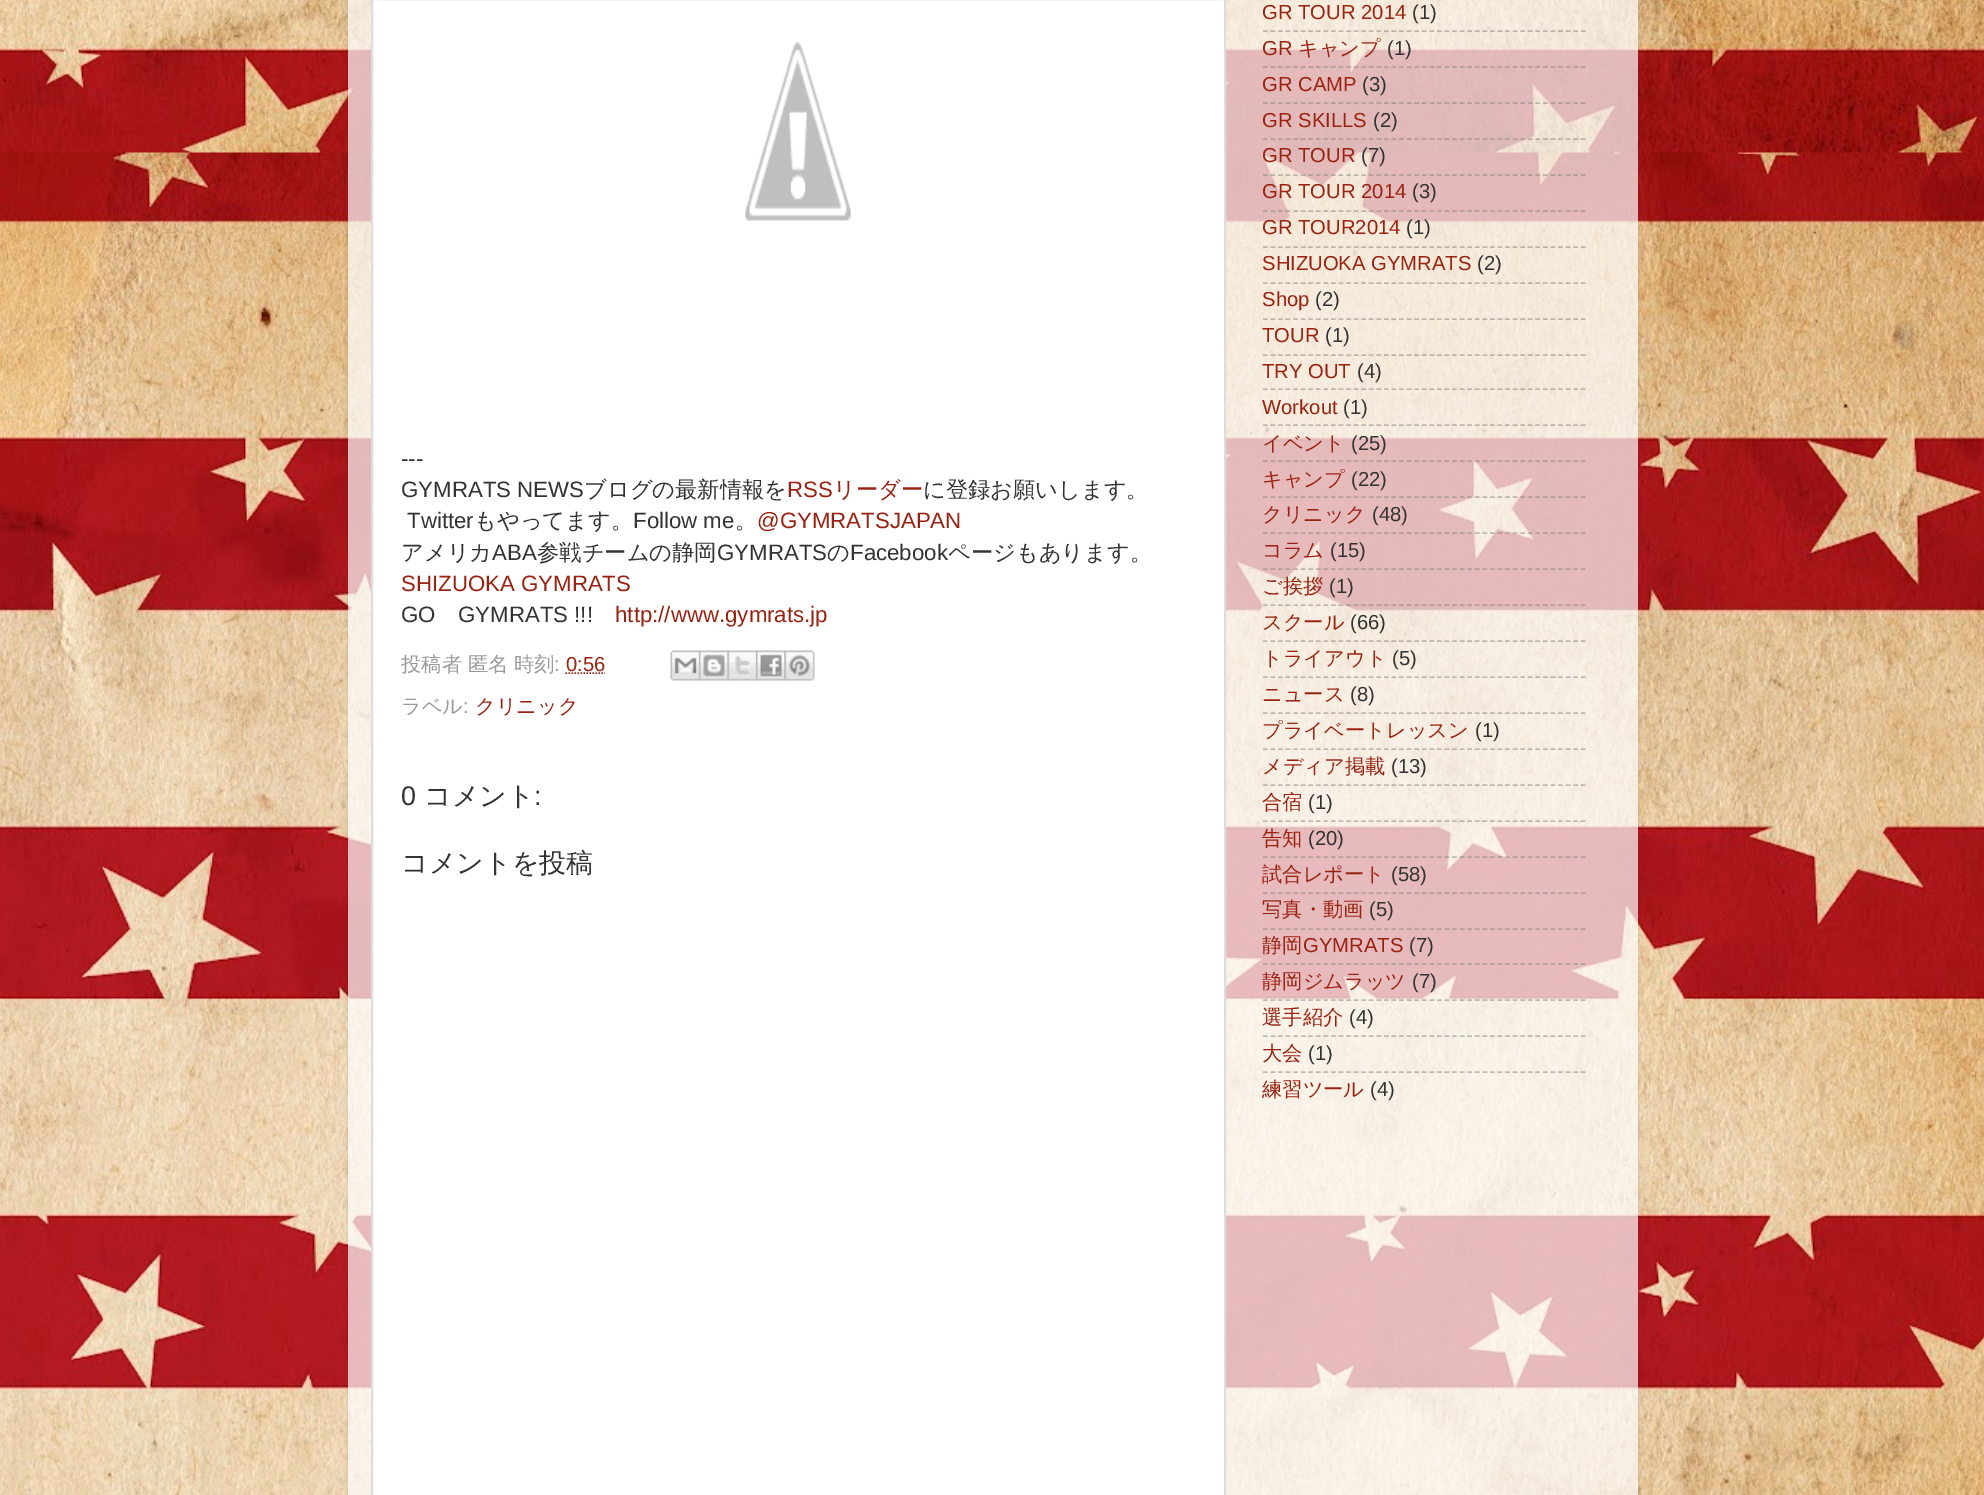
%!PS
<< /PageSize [1984 1495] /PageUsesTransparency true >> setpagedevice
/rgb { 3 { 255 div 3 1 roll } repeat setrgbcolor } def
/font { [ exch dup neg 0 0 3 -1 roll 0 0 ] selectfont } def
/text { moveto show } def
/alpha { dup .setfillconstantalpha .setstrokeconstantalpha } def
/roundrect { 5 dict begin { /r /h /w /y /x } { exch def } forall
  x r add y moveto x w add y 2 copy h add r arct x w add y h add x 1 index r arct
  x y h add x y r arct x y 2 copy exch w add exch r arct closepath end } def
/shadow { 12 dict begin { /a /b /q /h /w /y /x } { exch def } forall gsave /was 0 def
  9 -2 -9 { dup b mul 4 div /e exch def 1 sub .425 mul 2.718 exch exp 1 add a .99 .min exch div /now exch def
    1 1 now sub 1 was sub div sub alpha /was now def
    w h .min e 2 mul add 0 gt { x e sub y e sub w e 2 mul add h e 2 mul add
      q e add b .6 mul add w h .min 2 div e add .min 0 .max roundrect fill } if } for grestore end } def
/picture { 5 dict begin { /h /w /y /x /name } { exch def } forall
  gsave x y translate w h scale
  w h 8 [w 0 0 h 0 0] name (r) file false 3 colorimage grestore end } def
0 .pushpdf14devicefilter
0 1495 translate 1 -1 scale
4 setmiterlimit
255 255 255 rgb
0 0 1984 1495 rectfill
(img_01.rgb) 0 0 1984 1495 picture
gsave
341 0 moveto 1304 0 rlineto 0 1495 rlineto -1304 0 rlineto closepath 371 -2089 moveto 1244 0 rlineto 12.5 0 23 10.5 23 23 rcurveto 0 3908 rlineto 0 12.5 -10.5 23 -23 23 rcurveto -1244 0 rlineto -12.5 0 -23 -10.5 -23 -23 rcurveto 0 -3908 rlineto 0 -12.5 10.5 -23 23 -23 rcurveto closepath eoclip newpath
0 0 0 rgb
348 -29 1290 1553 23 2 0.15 shadow
grestore
0.7 alpha
348 0 1290 1495 rectfill
1 alpha
372 -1 moveto 853 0 rlineto 0 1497 rlineto -853 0 rlineto closepath gsave fill grestore
221 221 221 rgb
2 setlinewidth
stroke
(img_02.rgb) 745 42 106 179 picture
153 34 17 rgb
1.5 setlinewidth
[1.5 1.5] 0 setdash
565.5 673 moveto 39.5 0 rlineto stroke
(img_03.rgb) 670 650 31 31 picture
(img_04.rgb) 699 650 30 31 picture
(img_05.rgb) 727 650 31 31 picture
(img_06.rgb) 756 650 30 31 picture
(img_07.rgb) 784 650 31 31 picture
0.5 alpha
128 128 128 rgb
[4.5 3.07] 0 setdash
1263 31 moveto 322.5 0 rlineto stroke
1263 67 moveto 322.5 0 rlineto stroke
1263 103 moveto 322.5 0 rlineto stroke
1263 139 moveto 322.5 0 rlineto stroke
1263 175 moveto 322.5 0 rlineto stroke
1263 211 moveto 322.5 0 rlineto stroke
1263 247 moveto 322.5 0 rlineto stroke
1263 283 moveto 322.5 0 rlineto stroke
1263 319 moveto 322.5 0 rlineto stroke
1263 355 moveto 322.5 0 rlineto stroke
1263 389 moveto 322.5 0 rlineto stroke
1263 425 moveto 322.5 0 rlineto stroke
1263 461 moveto 322.5 0 rlineto stroke
1263 497 moveto 322.5 0 rlineto stroke
1263 533 moveto 322.5 0 rlineto stroke
1263 569 moveto 322.5 0 rlineto stroke
1263 605 moveto 322.5 0 rlineto stroke
1263 641 moveto 322.5 0 rlineto stroke
1263 677 moveto 322.5 0 rlineto stroke
1263 713 moveto 322.5 0 rlineto stroke
1263 749 moveto 322.5 0 rlineto stroke
1263 785 moveto 322.5 0 rlineto stroke
1263 821 moveto 322.5 0 rlineto stroke
1263 857 moveto 322.5 0 rlineto stroke
1263 893 moveto 322.5 0 rlineto stroke
1263 929 moveto 322.5 0 rlineto stroke
1263 964 moveto 322.5 0 rlineto stroke
1263 1000 moveto 322.5 0 rlineto stroke
1263 1036 moveto 322.5 0 rlineto stroke
1263 1072 moveto 322.5 0 rlineto stroke
/LiberationSans-Regular 22.25 font
1 alpha
51 51 51 rgb
(---) 401 466 text
(GYMRATS NEWS) 401 497 text
/WenQuanYiZenHei-Medium 22.25 font
(ブログの最新情報を) 584 497 text
/LiberationSans-Regular 22.25 font
153 34 17 rgb
(RSS) 787 497 text
/WenQuanYiZenHei-Medium 22.25 font
(リーダー) 833 497 text
51 51 51 rgb
(に登録お願いします。) 923 497 text
/LiberationSans-Regular 22.25 font
(Twitter) 407 528 text
/WenQuanYiZenHei-Medium 22.25 font
(もやってます。) 474 528 text
/LiberationSans-Regular 22.25 font
(Follow me) 633 528 text
/WenQuanYiZenHei-Medium 22.25 font
(。) 735 528 text
/LiberationSans-Regular 22.25 font
153 34 17 rgb
(@GYMRATSJAPAN) 757 528 text
/WenQuanYiZenHei-Medium 22.25 font
51 51 51 rgb
(アメリカ) 401 560 text
/LiberationSans-Regular 22.25 font
(ABA) 492 560 text
/WenQuanYiZenHei-Medium 22.25 font
(参戦チームの静岡) 537 560 text
/LiberationSans-Regular 22.25 font
(GYMRATS) 717 560 text
/WenQuanYiZenHei-Medium 22.25 font
(の) 827 560 text
/LiberationSans-Regular 22.25 font
(Facebook) 850 560 text
/WenQuanYiZenHei-Medium 22.25 font
(ページもあります。) 948 560 text
/LiberationSans-Regular 22.25 font
153 34 17 rgb
(SHIZUOKA GYMRATS) 401 591 text
51 51 51 rgb
(GO) 401 622 text
(GYMRATS !!!) 458 622 text
153 34 17 rgb
(http://www.gymrats.jp) 615 622 text
/WenQuanYiZenHei-Medium 20.25 font
153 153 153 rgb
(投稿者) 401 671 text
(匿名) 468 671 text
(時刻) 514 671 text
/LiberationSans-Regular 20.25 font
(:) 554 671 text
153 34 17 rgb
(0:56) 566 671 text
/WenQuanYiZenHei-Medium 20.25 font
153 153 153 rgb
(ラベル) 401 713 text
/LiberationSans-Regular 20.25 font
(:) 463 713 text
/WenQuanYiZenHei-Medium 20.25 font
153 34 17 rgb
(クリニック) 475 713 text
/LiberationSans-Regular 27 font
51 51 51 rgb
(0) 401 805 text
/WenQuanYiZenHei-Medium 27 font
(コメント) 424 805 text
/LiberationSans-Regular 27 font
(:) 534 805 text
/WenQuanYiZenHei-Medium 27 font
(コメントを投稿) 401 872 text
/LiberationSans-Regular 20.25 font
153 34 17 rgb
(GR TOUR 2014) 1262 19 text
51 51 51 rgb
(\(1\)) 1412 19 text
153 34 17 rgb
(GR) 1262 55 text
/WenQuanYiZenHei-Medium 20.25 font
(キャンプ) 1298 55 text
/LiberationSans-Regular 20.25 font
51 51 51 rgb
(\(1\)) 1387 55 text
153 34 17 rgb
(GR CAMP) 1262 91 text
51 51 51 rgb
(\(3\)) 1362 91 text
153 34 17 rgb
(GR SKILLS) 1262 127 text
51 51 51 rgb
(\(2\)) 1373 127 text
153 34 17 rgb
(GR TOUR) 1262 162 text
51 51 51 rgb
(\(7\)) 1361 162 text
153 34 17 rgb
(GR TOUR 2014) 1262 198 text
51 51 51 rgb
(\(3\)) 1412 198 text
153 34 17 rgb
(GR TOUR2014) 1262 234 text
51 51 51 rgb
(\(1\)) 1406 234 text
153 34 17 rgb
(SHIZUOKA GYMRATS) 1262 270 text
51 51 51 rgb
(\(2\)) 1477 270 text
153 34 17 rgb
(Shop) 1262 306 text
51 51 51 rgb
(\(2\)) 1315 306 text
153 34 17 rgb
(TOUR) 1262 342 text
51 51 51 rgb
(\(1\)) 1325 342 text
153 34 17 rgb
(TRY OUT) 1262 378 text
51 51 51 rgb
(\(4\)) 1357 378 text
153 34 17 rgb
(Workout) 1262 414 text
51 51 51 rgb
(\(1\)) 1343 414 text
/WenQuanYiZenHei-Medium 20.25 font
153 34 17 rgb
(イベント) 1262 450 text
/LiberationSans-Regular 20.25 font
51 51 51 rgb
(\(25\)) 1351 450 text
/WenQuanYiZenHei-Medium 20.25 font
153 34 17 rgb
(キャンプ) 1262 486 text
/LiberationSans-Regular 20.25 font
51 51 51 rgb
(\(22\)) 1351 486 text
/WenQuanYiZenHei-Medium 20.25 font
153 34 17 rgb
(クリニック) 1262 521 text
/LiberationSans-Regular 20.25 font
51 51 51 rgb
(\(48\)) 1372 521 text
/WenQuanYiZenHei-Medium 20.25 font
153 34 17 rgb
(コラム) 1262 557 text
/LiberationSans-Regular 20.25 font
51 51 51 rgb
(\(15\)) 1330 557 text
/WenQuanYiZenHei-Medium 20.25 font
153 34 17 rgb
(ご挨拶) 1262 593 text
/LiberationSans-Regular 20.25 font
51 51 51 rgb
(\(1\)) 1329 593 text
/WenQuanYiZenHei-Medium 20.25 font
153 34 17 rgb
(スクール) 1262 629 text
/LiberationSans-Regular 20.25 font
51 51 51 rgb
(\(66\)) 1350 629 text
/WenQuanYiZenHei-Medium 20.25 font
153 34 17 rgb
(トライアウト) 1262 665 text
/LiberationSans-Regular 20.25 font
51 51 51 rgb
(\(5\)) 1392 665 text
/WenQuanYiZenHei-Medium 20.25 font
153 34 17 rgb
(ニュース) 1262 701 text
/LiberationSans-Regular 20.25 font
51 51 51 rgb
(\(8\)) 1350 701 text
/WenQuanYiZenHei-Medium 20.25 font
153 34 17 rgb
(プライベートレッスン) 1262 737 text
/LiberationSans-Regular 20.25 font
51 51 51 rgb
(\(1\)) 1475 737 text
/WenQuanYiZenHei-Medium 20.25 font
153 34 17 rgb
(メディア掲載) 1262 773 text
/LiberationSans-Regular 20.25 font
51 51 51 rgb
(\(13\)) 1391 773 text
/WenQuanYiZenHei-Medium 20.25 font
153 34 17 rgb
(合宿) 1262 809 text
/LiberationSans-Regular 20.25 font
51 51 51 rgb
(\(1\)) 1308 809 text
/WenQuanYiZenHei-Medium 20.25 font
153 34 17 rgb
(告知) 1262 845 text
/LiberationSans-Regular 20.25 font
51 51 51 rgb
(\(20\)) 1308 845 text
/WenQuanYiZenHei-Medium 20.25 font
153 34 17 rgb
(試合レポート) 1262 881 text
/LiberationSans-Regular 20.25 font
51 51 51 rgb
(\(58\)) 1391 881 text
/WenQuanYiZenHei-Medium 20.25 font
153 34 17 rgb
(写真・動画) 1262 916 text
/LiberationSans-Regular 20.25 font
51 51 51 rgb
(\(5\)) 1369 916 text
/WenQuanYiZenHei-Medium 20.25 font
153 34 17 rgb
(静岡) 1262 952 text
/LiberationSans-Regular 20.25 font
(GYMRATS) 1303 952 text
51 51 51 rgb
(\(7\)) 1409 952 text
/WenQuanYiZenHei-Medium 20.25 font
153 34 17 rgb
(静岡ジムラッツ) 1262 988 text
/LiberationSans-Regular 20.25 font
51 51 51 rgb
(\(7\)) 1412 988 text
/WenQuanYiZenHei-Medium 20.25 font
153 34 17 rgb
(選手紹介) 1262 1024 text
/LiberationSans-Regular 20.25 font
51 51 51 rgb
(\(4\)) 1349 1024 text
/WenQuanYiZenHei-Medium 20.25 font
153 34 17 rgb
(大会) 1262 1060 text
/LiberationSans-Regular 20.25 font
51 51 51 rgb
(\(1\)) 1308 1060 text
/WenQuanYiZenHei-Medium 20.25 font
153 34 17 rgb
(練習ツール) 1262 1096 text
/LiberationSans-Regular 20.25 font
51 51 51 rgb
(\(4\)) 1370 1096 text
.poppdf14devicefilter showpage
